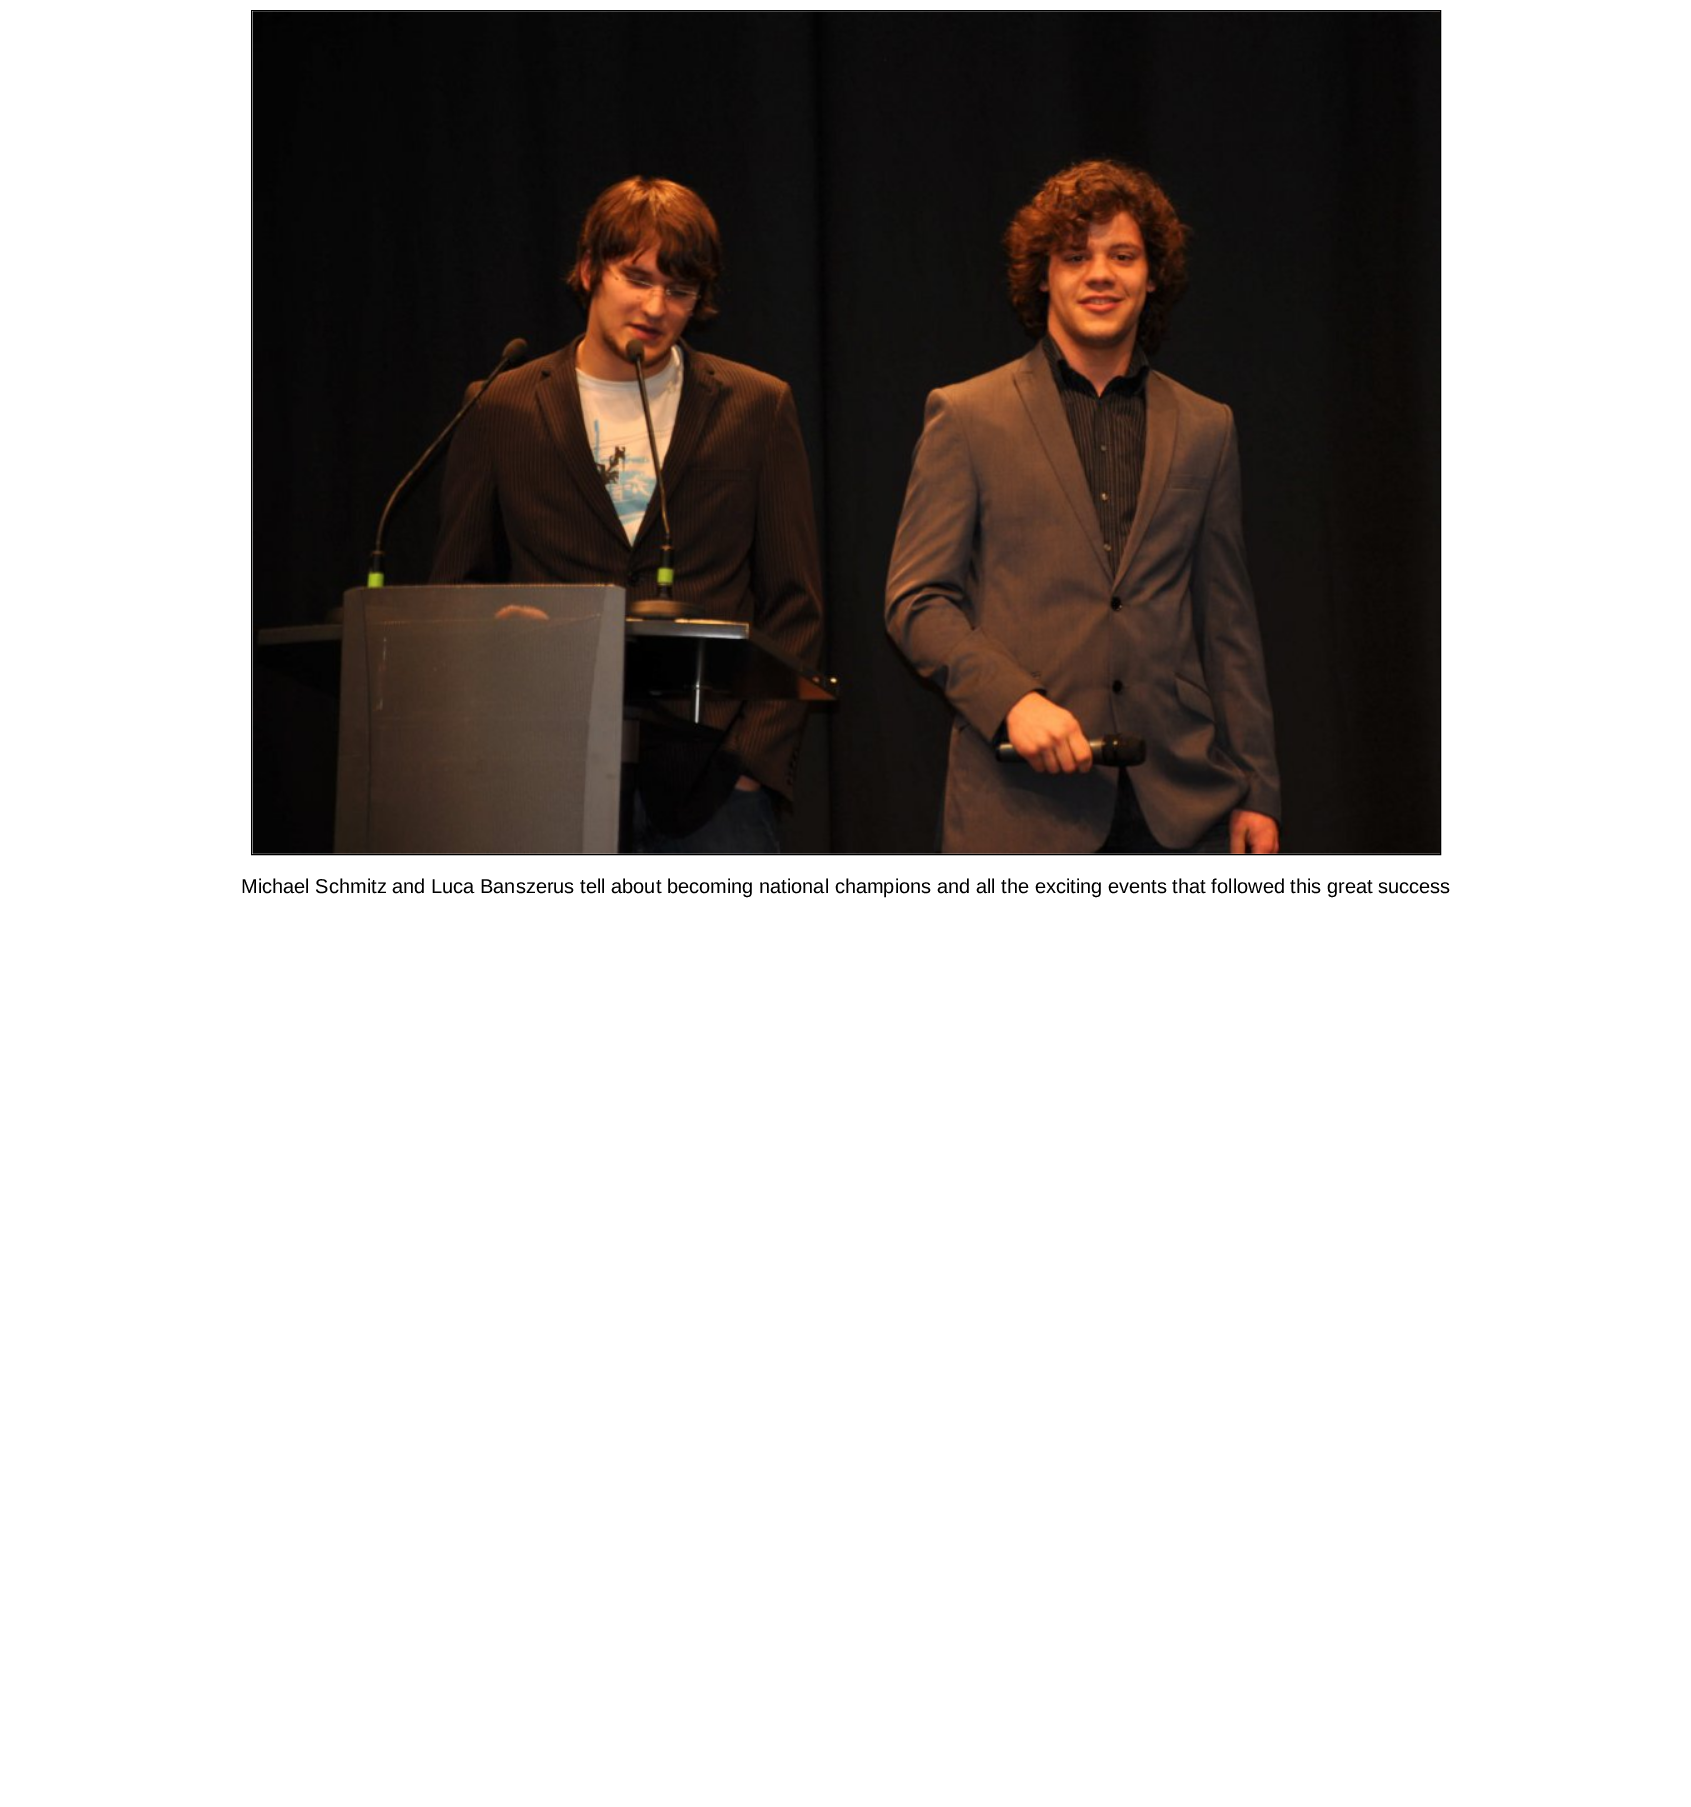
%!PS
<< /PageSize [1691 1807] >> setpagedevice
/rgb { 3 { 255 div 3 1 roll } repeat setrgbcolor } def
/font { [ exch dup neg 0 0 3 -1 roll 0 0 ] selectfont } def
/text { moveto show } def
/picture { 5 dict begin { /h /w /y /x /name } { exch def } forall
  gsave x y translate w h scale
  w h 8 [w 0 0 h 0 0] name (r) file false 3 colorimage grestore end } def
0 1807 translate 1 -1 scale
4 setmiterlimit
255 255 255 rgb
0 0 1691 1807 rectfill
0 0 0 rgb
251.5 10.5 1189 844 rectstroke
(img_01.rgb) 252 11 1188 843 picture
/LiberationSans-Regular 20 font
(Michael Schmitz and Luca Banszerus tell about becoming national champions and all the exciting events that followed this great success) 241 893 text
showpage
